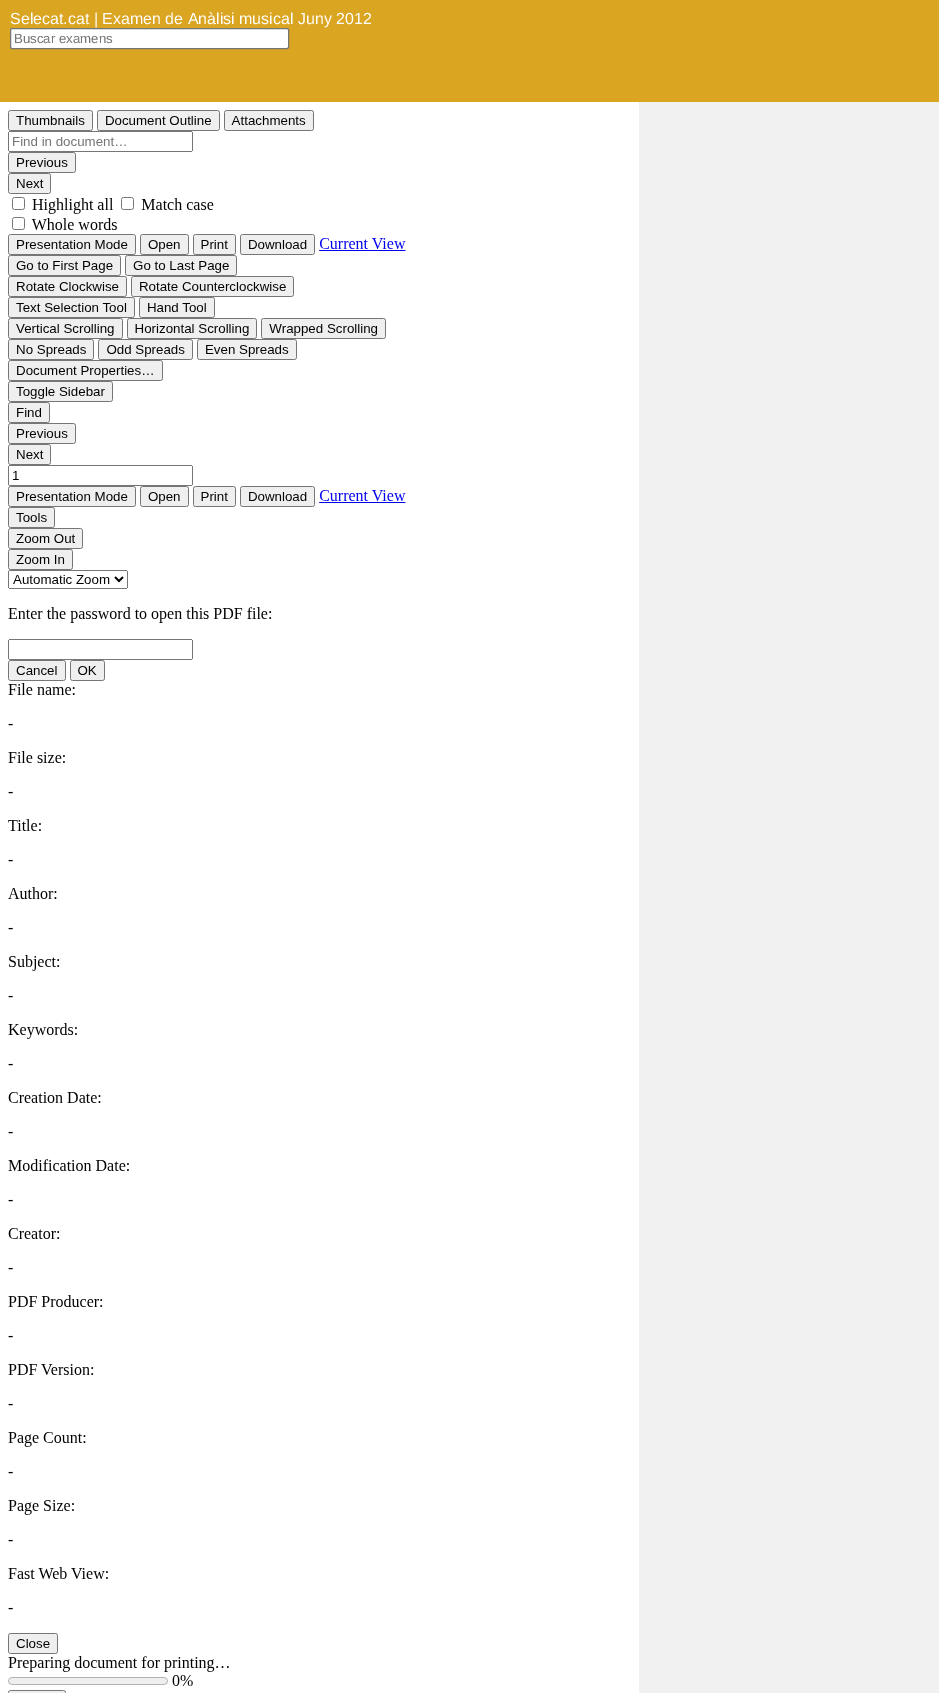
%!PS
<< /PageSize [939 1693] >> setpagedevice
/rgb { 3 { 255 div 3 1 roll } repeat setrgbcolor } def
/font { [ exch dup neg 0 0 3 -1 roll 0 0 ] selectfont } def
/text { moveto show } def
/roundrect { 5 dict begin { /r /h /w /y /x } { exch def } forall
  x r add y moveto x w add y 2 copy h add r arct x w add y h add x 1 index r arct
  x y h add x y r arct x y 2 copy exch w add exch r arct closepath end } def
/picture { 5 dict begin { /h /w /y /x /name } { exch def } forall
  gsave x y translate w h scale
  w h 8 [w 0 0 h 0 0] name (r) file false 3 colorimage grestore end } def
0 1693 translate 1 -1 scale
4 setmiterlimit
255 255 255 rgb
0 0 939 1693 rectfill
218 165 32 rgb
0 0 939 102 rectfill
255 255 255 rgb
10.5 28.5 278 20 1.5 roundrect gsave fill grestore
118 118 118 rgb
stroke
(img_01.rgb) 8 110 398 1583 picture
241 241 241 rgb
639 102 300 1591 rectfill
/LiberationSans-Regular 16 font
255 255 255 rgb
(Selecat.cat | Examen de Anàlisi musical Juny 2012) 10 24 text
/LiberationSans-Regular 13.25 font
117 117 117 rgb
(Buscar examens) 14 43 text
showpage
